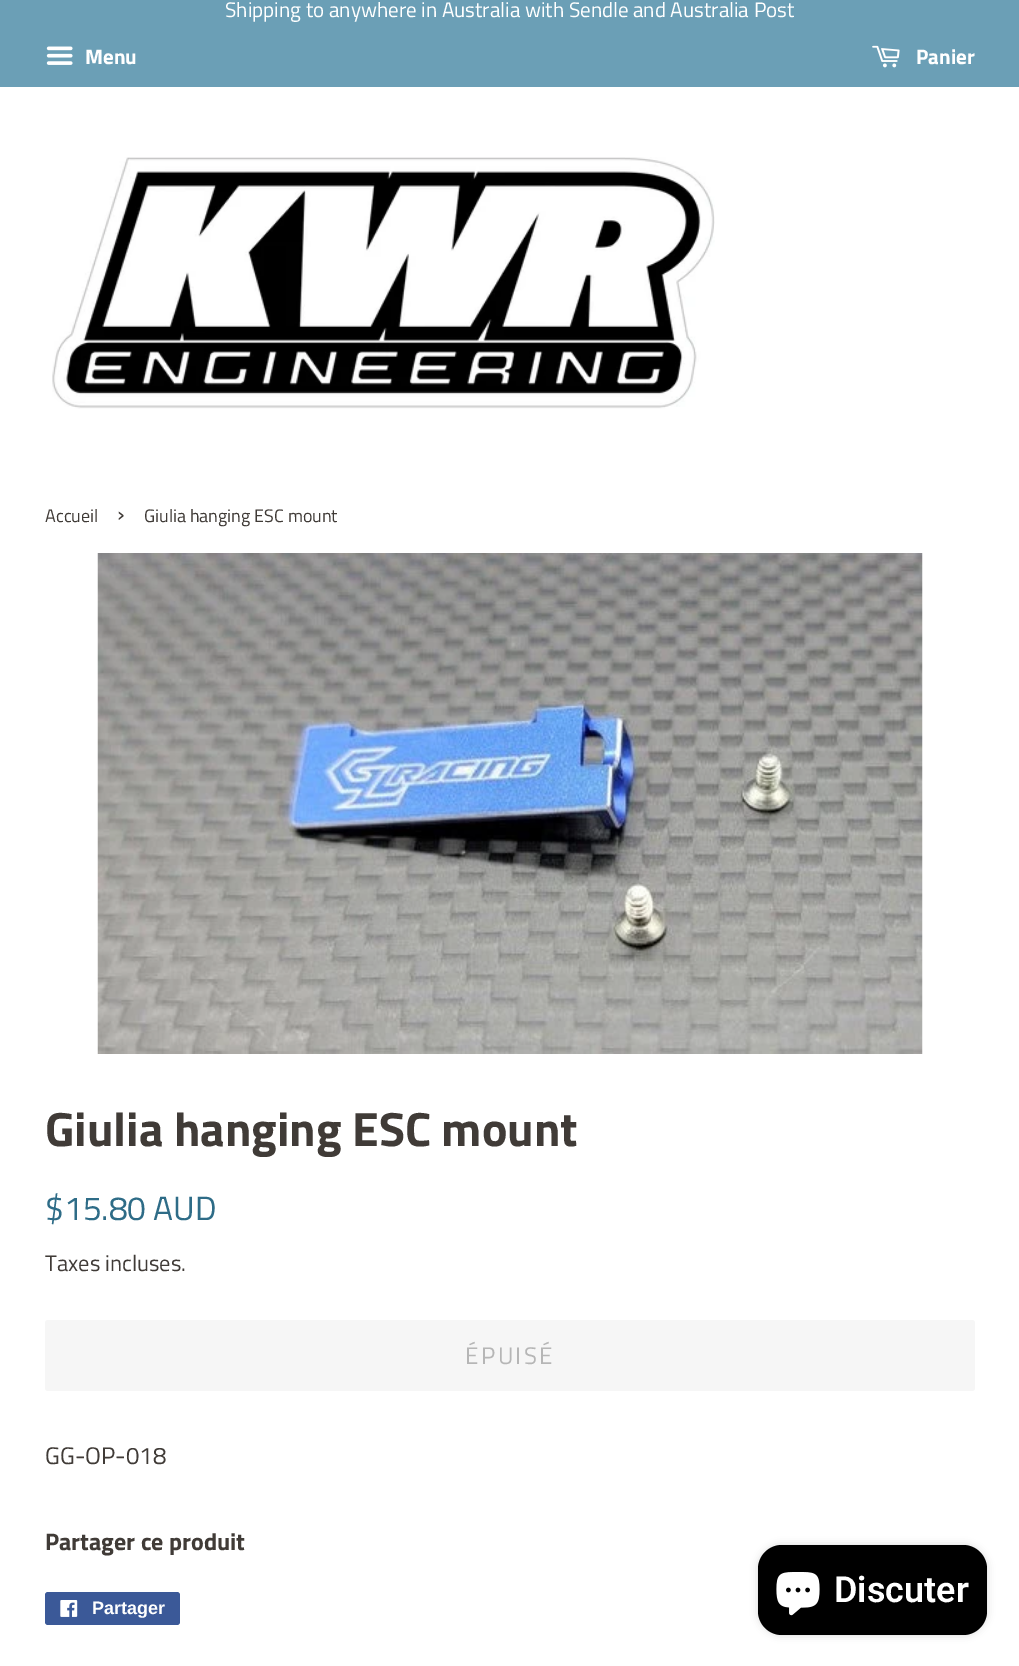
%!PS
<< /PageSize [1019 1666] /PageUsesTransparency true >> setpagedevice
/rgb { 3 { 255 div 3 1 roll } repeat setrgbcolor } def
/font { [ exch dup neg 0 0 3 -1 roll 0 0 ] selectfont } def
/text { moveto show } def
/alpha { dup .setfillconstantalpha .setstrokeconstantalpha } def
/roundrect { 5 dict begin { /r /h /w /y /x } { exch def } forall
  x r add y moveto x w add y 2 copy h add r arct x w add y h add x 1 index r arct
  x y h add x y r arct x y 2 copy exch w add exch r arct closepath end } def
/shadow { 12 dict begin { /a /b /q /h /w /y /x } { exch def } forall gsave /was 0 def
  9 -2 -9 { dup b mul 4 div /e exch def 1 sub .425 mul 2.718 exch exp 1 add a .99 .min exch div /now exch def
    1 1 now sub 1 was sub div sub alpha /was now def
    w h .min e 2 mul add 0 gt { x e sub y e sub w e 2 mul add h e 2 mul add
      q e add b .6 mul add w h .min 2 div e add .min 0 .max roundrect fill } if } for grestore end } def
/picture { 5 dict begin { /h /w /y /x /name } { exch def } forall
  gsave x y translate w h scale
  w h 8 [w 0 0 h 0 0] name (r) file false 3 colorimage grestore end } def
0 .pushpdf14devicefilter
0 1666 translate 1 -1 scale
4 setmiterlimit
255 255 255 rgb
0 0 1019 1666 rectfill
107 159 182 rgb
0 0 1019 87 rectfill
(img_01.rgb) 46 46 27 19 picture
(img_02.rgb) 872 45 28 23 picture
(img_03.rgb) 52 157 663 252 picture
(img_04.rgb) 97 553 826 501 picture
246 246 246 rgb
45 1320 930 71 3 roundrect fill
59 89 152 rgb
45 1592 135 33 3 roundrect fill
(img_05.rgb) 60 1600 18 17 picture
0 0 0 rgb
758 1545 229 90 24 4 0.15 shadow
758 1545 229 90 24 roundrect fill
(img_06.rgb) 776 1572 44 44 picture
/TitilliumWeb-Regular 21 font
255 255 255 rgb
(Shipping to anywhere in Australia with Sendle and Australia Post) 225 17 text
/TitilliumWeb-Bold 21 font
(Menu) 85 64 text
(Panier) 916 64 text
/TitilliumWeb-Regular 18 font
64 59 55 rgb
(Accueil) 45 522 text
/TitilliumWeb-Regular 25 font
(›) 117 522 text
/TitilliumWeb-Regular 18 font
(Giulia hanging ESC mount) 144 522 text
/TitilliumWeb-Bold 48 font
(Giulia hanging ESC mount) 45 1146 text
/TitilliumWeb-Regular 33.5 font
46 108 135 rgb
($15.80 AUD) 45 1220 text
/TitilliumWeb-Regular 22.5 font
64 59 55 rgb
(Taxes incluses.) 45 1271 text
/TitilliumWeb-Regular 24 font
182 182 182 rgb
465 1364 moveto 2.5 0 (ÉPUISÉ) ashow
64 59 55 rgb
(GG-OP-018) 45 1464 text
/TitilliumWeb-Bold 24 font
(Partager ce produit) 45 1550 text
/LiberationSans-Bold 18 font
255 255 255 rgb
(Partager) 92 1614 text
/Roboto-SemiBold 36 font
(Discuter) 834 1602 text
.poppdf14devicefilter showpage
